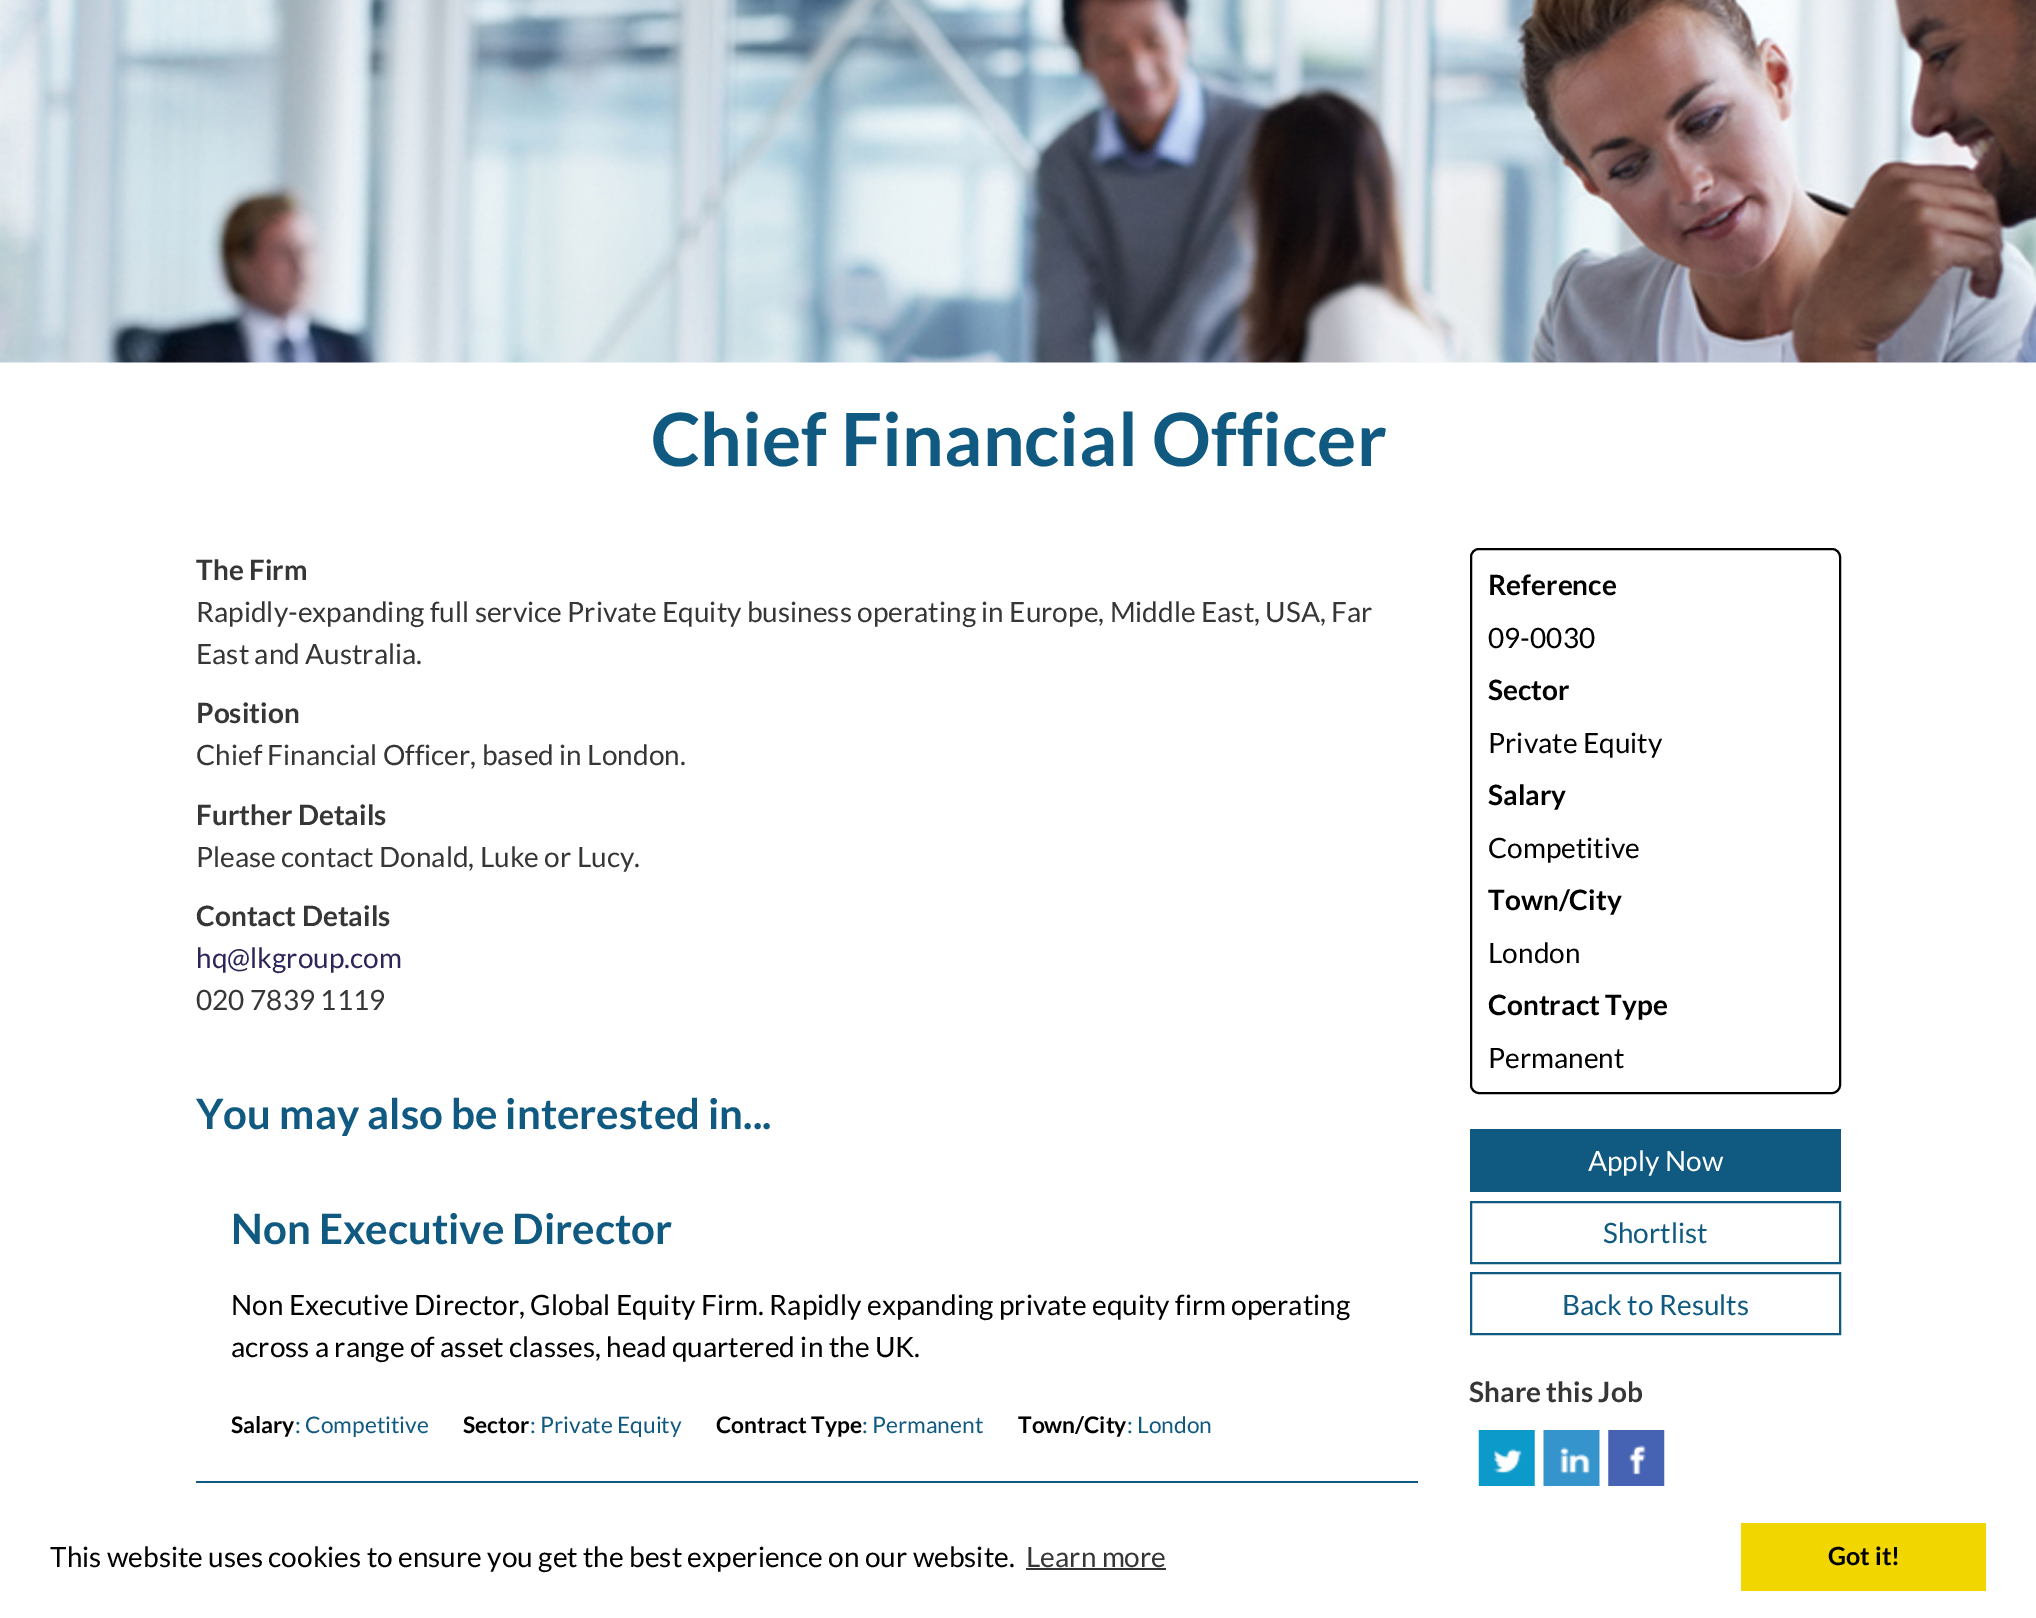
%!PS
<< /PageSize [2036 1618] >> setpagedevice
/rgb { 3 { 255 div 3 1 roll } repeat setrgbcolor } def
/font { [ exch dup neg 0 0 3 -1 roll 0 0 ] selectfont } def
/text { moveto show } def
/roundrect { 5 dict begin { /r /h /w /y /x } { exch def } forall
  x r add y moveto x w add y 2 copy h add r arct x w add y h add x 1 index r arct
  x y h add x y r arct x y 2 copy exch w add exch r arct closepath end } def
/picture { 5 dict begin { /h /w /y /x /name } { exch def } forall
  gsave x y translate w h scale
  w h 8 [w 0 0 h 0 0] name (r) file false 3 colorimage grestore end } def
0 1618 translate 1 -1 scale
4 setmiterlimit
255 255 255 rgb
0 0 2036 1618 rectfill
(img_01.rgb) 0 0 2036 363 picture
16 90 129 rgb
196 1481 1222 2 rectfill
0 0 0 rgb
2 setlinewidth
1471 549 369 544 8 roundrect stroke
16 90 129 rgb
1470 1129 371 63 rectfill
1471 1202 369 61 rectstroke
1471 1273 369 61 rectstroke
(img_02.rgb) 1478 1430 57 56 picture
(img_03.rgb) 1543 1430 57 56 picture
(img_04.rgb) 1608 1430 57 56 picture
51 51 51 rgb
1026 1568 140 2 rectfill
241 214 0 rgb
1741 1523 245 68 rectfill
/Lato-Bold 73.5 font
16 90 129 rgb
(Chief Financial Officer) 651 466 text
/Lato-Bold 28 font
54 54 54 rgb
(The Firm) 196 580 text
/Lato-Regular 28 font
(Rapidly-expanding full service Private Equity business operating in Europe, Middle East, USA, Far) 196 622 text
(East and Australia.) 196 664 text
/Lato-Bold 28 font
(Position) 196 723 text
/Lato-Regular 28 font
(Chief Financial Officer, based in London.) 196 765 text
/Lato-Bold 28 font
(Further Details) 196 825 text
/Lato-Regular 28 font
(Please contact Donald, Luke or Lucy.) 196 867 text
/Lato-Bold 28 font
(Contact Details) 196 926 text
/Lato-Regular 28 font
44 37 90 rgb
(hq@lkgroup.com) 196 968 text
54 54 54 rgb
(020 7839 1119) 196 1010 text
/Lato-Bold 42 font
16 90 129 rgb
(You may also be interested in...) 196 1129 text
(Non Executive Director) 231 1244 text
/Lato-Regular 28 font
0 0 0 rgb
(Non Executive Director, Global Equity Firm. Rapidly expanding private equity firm operating) 231 1315 text
(across a range of asset classes, head quartered in the UK.) 231 1357 text
/Lato-Bold 22.75 font
(Salary) 231 1433 text
/Lato-Regular 22.75 font
16 90 129 rgb
(: Competitive) 295 1433 text
/Lato-Bold 22.75 font
0 0 0 rgb
(Sector) 463 1433 text
/Lato-Regular 22.75 font
16 90 129 rgb
(: Private Equity) 530 1433 text
/Lato-Bold 22.75 font
0 0 0 rgb
(Contract Type) 716 1433 text
/Lato-Regular 22.75 font
16 90 129 rgb
(: Permanent) 862 1433 text
/Lato-Bold 22.75 font
0 0 0 rgb
(Town/City) 1018 1433 text
/Lato-Regular 22.75 font
16 90 129 rgb
(: London) 1127 1433 text
/Lato-Bold 28 font
0 0 0 rgb
(Reference) 1488 595 text
/Lato-Regular 28 font
(09-0030) 1488 648 text
/Lato-Bold 28 font
(Sector) 1488 700 text
/Lato-Regular 28 font
(Private Equity) 1488 753 text
/Lato-Bold 28 font
(Salary) 1488 805 text
/Lato-Regular 28 font
(Competitive) 1488 858 text
/Lato-Bold 28 font
(Town/City) 1488 910 text
/Lato-Regular 28 font
(London) 1488 963 text
/Lato-Bold 28 font
(Contract Type) 1488 1015 text
/Lato-Regular 28 font
(Permanent) 1488 1068 text
255 255 255 rgb
(Apply Now) 1588 1171 text
16 90 129 rgb
(Shortlist) 1603 1243 text
(Back to Results) 1562 1315 text
/Lato-Bold 28 font
54 54 54 rgb
(Share this Job) 1469 1402 text
/Lato-Regular 28 font
0 0 0 rgb
(This website uses cookies to ensure you get the best experience on our website.) 50 1567 text
54 54 54 rgb
(Learn more) 1026 1567 text
/Lato-Bold 25 font
0 0 0 rgb
(Got it!) 1828 1565 text
showpage
